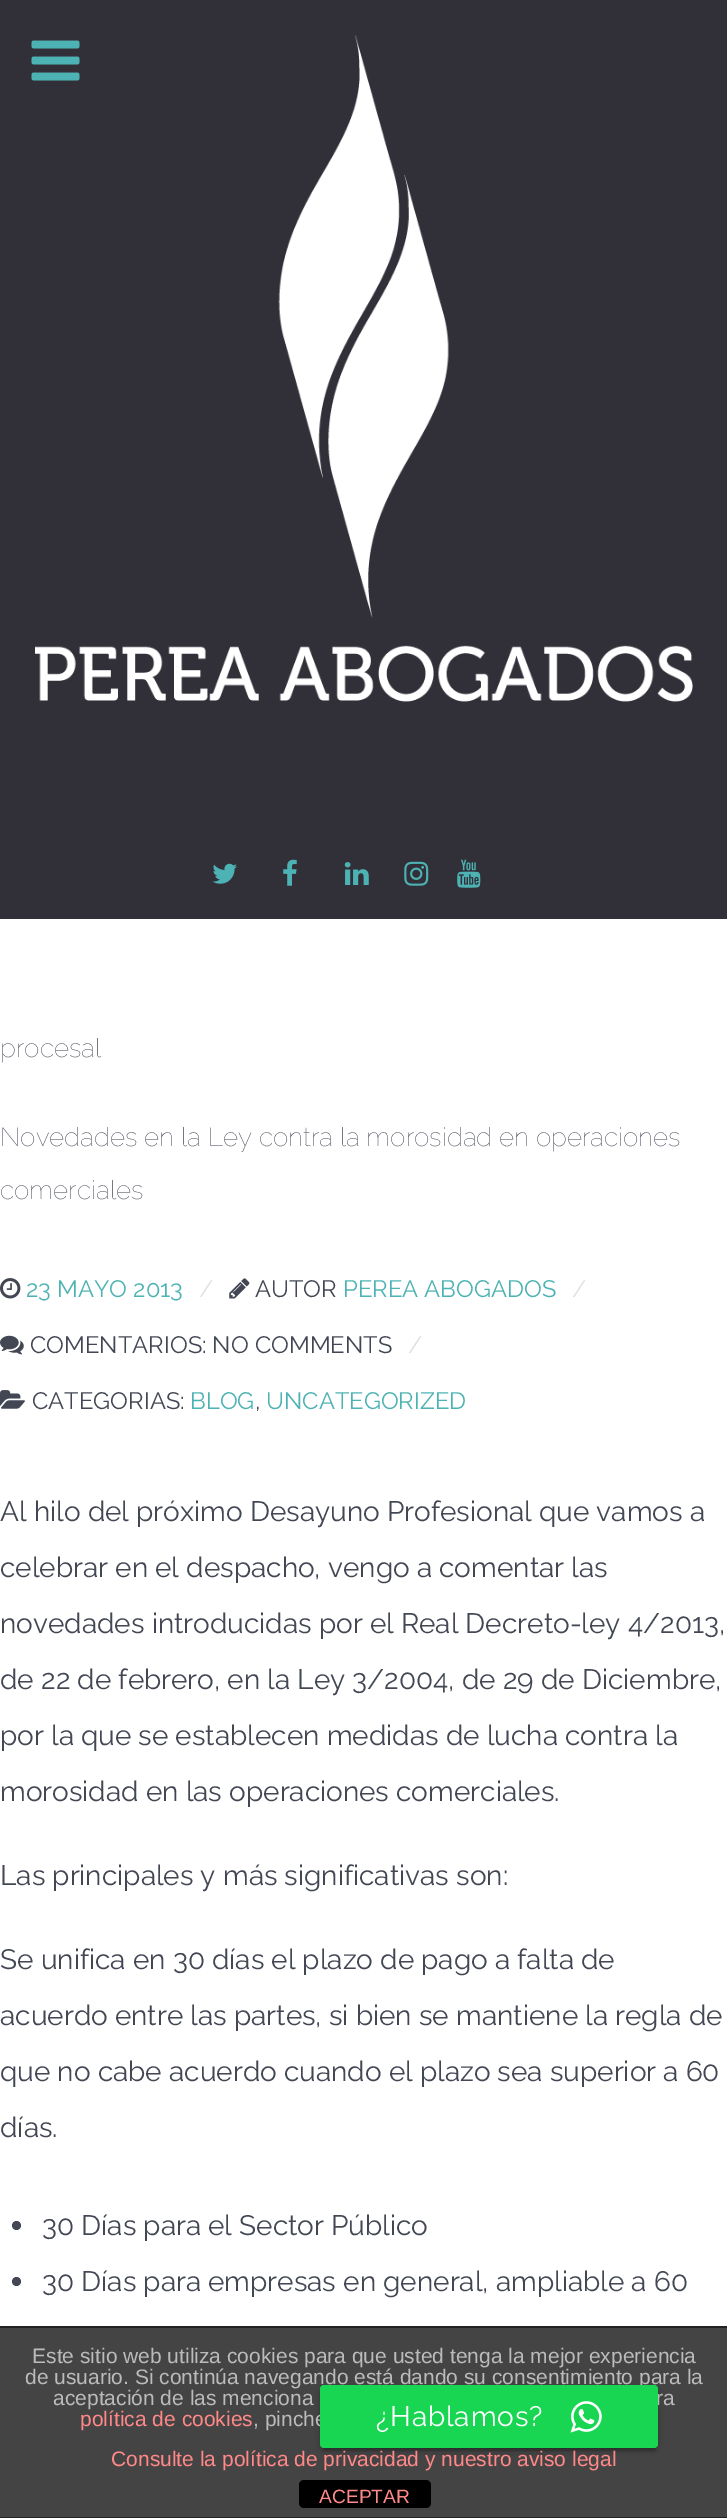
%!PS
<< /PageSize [727 2518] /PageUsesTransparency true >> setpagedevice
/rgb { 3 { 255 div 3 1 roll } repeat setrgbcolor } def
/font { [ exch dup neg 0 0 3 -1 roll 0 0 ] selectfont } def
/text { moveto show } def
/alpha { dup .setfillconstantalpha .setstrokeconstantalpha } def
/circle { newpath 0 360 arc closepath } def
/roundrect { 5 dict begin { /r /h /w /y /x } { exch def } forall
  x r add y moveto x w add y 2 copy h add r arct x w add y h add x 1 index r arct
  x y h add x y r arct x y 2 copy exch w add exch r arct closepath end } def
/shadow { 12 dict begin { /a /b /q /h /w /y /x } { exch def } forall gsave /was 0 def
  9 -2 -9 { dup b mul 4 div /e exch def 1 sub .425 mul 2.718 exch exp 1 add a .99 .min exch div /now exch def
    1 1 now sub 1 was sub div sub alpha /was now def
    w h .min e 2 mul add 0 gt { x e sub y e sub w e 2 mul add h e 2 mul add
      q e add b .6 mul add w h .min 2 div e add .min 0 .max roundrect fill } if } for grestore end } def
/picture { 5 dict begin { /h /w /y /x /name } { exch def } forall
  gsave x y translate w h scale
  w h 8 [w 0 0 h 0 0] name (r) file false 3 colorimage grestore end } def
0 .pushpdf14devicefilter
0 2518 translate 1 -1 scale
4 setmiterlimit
255 255 255 rgb
0 0 727 2518 rectfill
49 47 56 rgb
0 0 727 919 rectfill
(img_01.rgb) 35 35 658 667 picture
(img_02.rgb) 212 863 25 21 picture
(img_03.rgb) 283 859 14 27 picture
(img_04.rgb) 344 862 25 23 picture
(img_05.rgb) 404 861 25 25 picture
(img_06.rgb) 457 859 24 29 picture
(img_07.rgb) 31 40 49 41 picture
(img_08.rgb) 0 1278 21 21 picture
(img_09.rgb) 229 1278 21 21 picture
(img_10.rgb) 0 1335 24 20 picture
(img_11.rgb) 0 1390 25 19 picture
66 71 83 rgb
16.5 2225.5 4.5 circle fill
16.5 2281.5 4.5 circle fill
68 68 68 rgb
0 2328 727 189 rectfill
34 34 34 rgb
0 2326 727 2 rectfill
0 2517 727 1 rectfill
0 0 0 rgb
299 2480 132 28 5 roundrect fill
324 2394 331 56 0 1 0.2 shadow
320 2387 338 63 4 4.5 0.12 shadow
320 2389 338 63 4 2 0.14 shadow
/Raleway-Thin 26.2 font
66 71 83 rgb
(procesal) 0 1057 text
(Novedades en la Ley contra la morosidad en operaciones) 0 1146 text
(comerciales) 0 1199 text
/Raleway-Regular 23.75 font
77 178 179 rgb
(23 MAYO 2013) 26 1297 text
224 224 229 rgb
(/) 199 1297 text
66 71 83 rgb
(AUTOR) 255 1297 text
77 178 179 rgb
(PEREA ABOGADOS) 343 1297 text
224 224 229 rgb
(/) 572 1297 text
66 71 83 rgb
(COMENTARIOS: NO COMMENTS) 30 1353 text
224 224 229 rgb
(/) 408 1353 text
66 71 83 rgb
(CATEGORIAS:) 32 1409 text
77 178 179 rgb
(BLOG) 190 1409 text
66 71 83 rgb
(,) 255 1409 text
77 178 179 rgb
(UNCATEGORIZED) 266 1409 text
/Raleway-Regular 28 font
66 71 83 rgb
(Al hilo del próximo Desayuno Profesional que vamos a) 0 1521 text
(celebrar en el despacho, vengo a comentar las) 0 1577 text
(novedades introducidas por el Real Decreto-ley 4/2013,) 0 1633 text
(de 22 de febrero, en la Ley 3/2004, de 29 de Diciembre,) 0 1689 text
(por la que se establecen medidas de lucha contra la) 0 1745 text
(morosidad en las operaciones comerciales.) 0 1801 text
(Las principales y más significativas son:) 0 1885 text
(Se unifica en 30 días el plazo de pago a falta de) 0 1969 text
(acuerdo entre las partes, si bien se mantiene la regla de) 0 2025 text
(que no cabe acuerdo cuando el plazo sea superior a 60) 0 2081 text
(días.) 0 2137 text
(30 Días para el Sector Público) 42 2235 text
(30 Días para empresas en general, ampliable a 60) 42 2291 text
/LiberationSans-Regular 21 font
187 187 187 rgb
(Este sitio web utiliza cookies para que usted tenga la mejor experiencia) 32 2363 text
(de usuario. Si continúa navegando está dando su consentimiento para la) 25 2384 text
(aceptación de las menciona) 53 2405 text
(ra) 656 2405 text
255 136 136 rgb
(política de cookies) 80 2426 text
187 187 187 rgb
(, pinche) 253 2426 text
255 136 136 rgb
(Consulte la política de privacidad y nuestro aviso legal) 111 2466 text
/LiberationSans-Regular 19.25 font
(ACEPTAR) 319 2503 text
25 214 82 rgb
320 2385 338 63 4 roundrect fill
/Raleway-Regular 28 font
255 255 255 rgb
376 2426 moveto 0.9 0 (¿Hablamos?) ashow
(img_12.rgb) 570 2401 32 32 picture
.poppdf14devicefilter showpage
